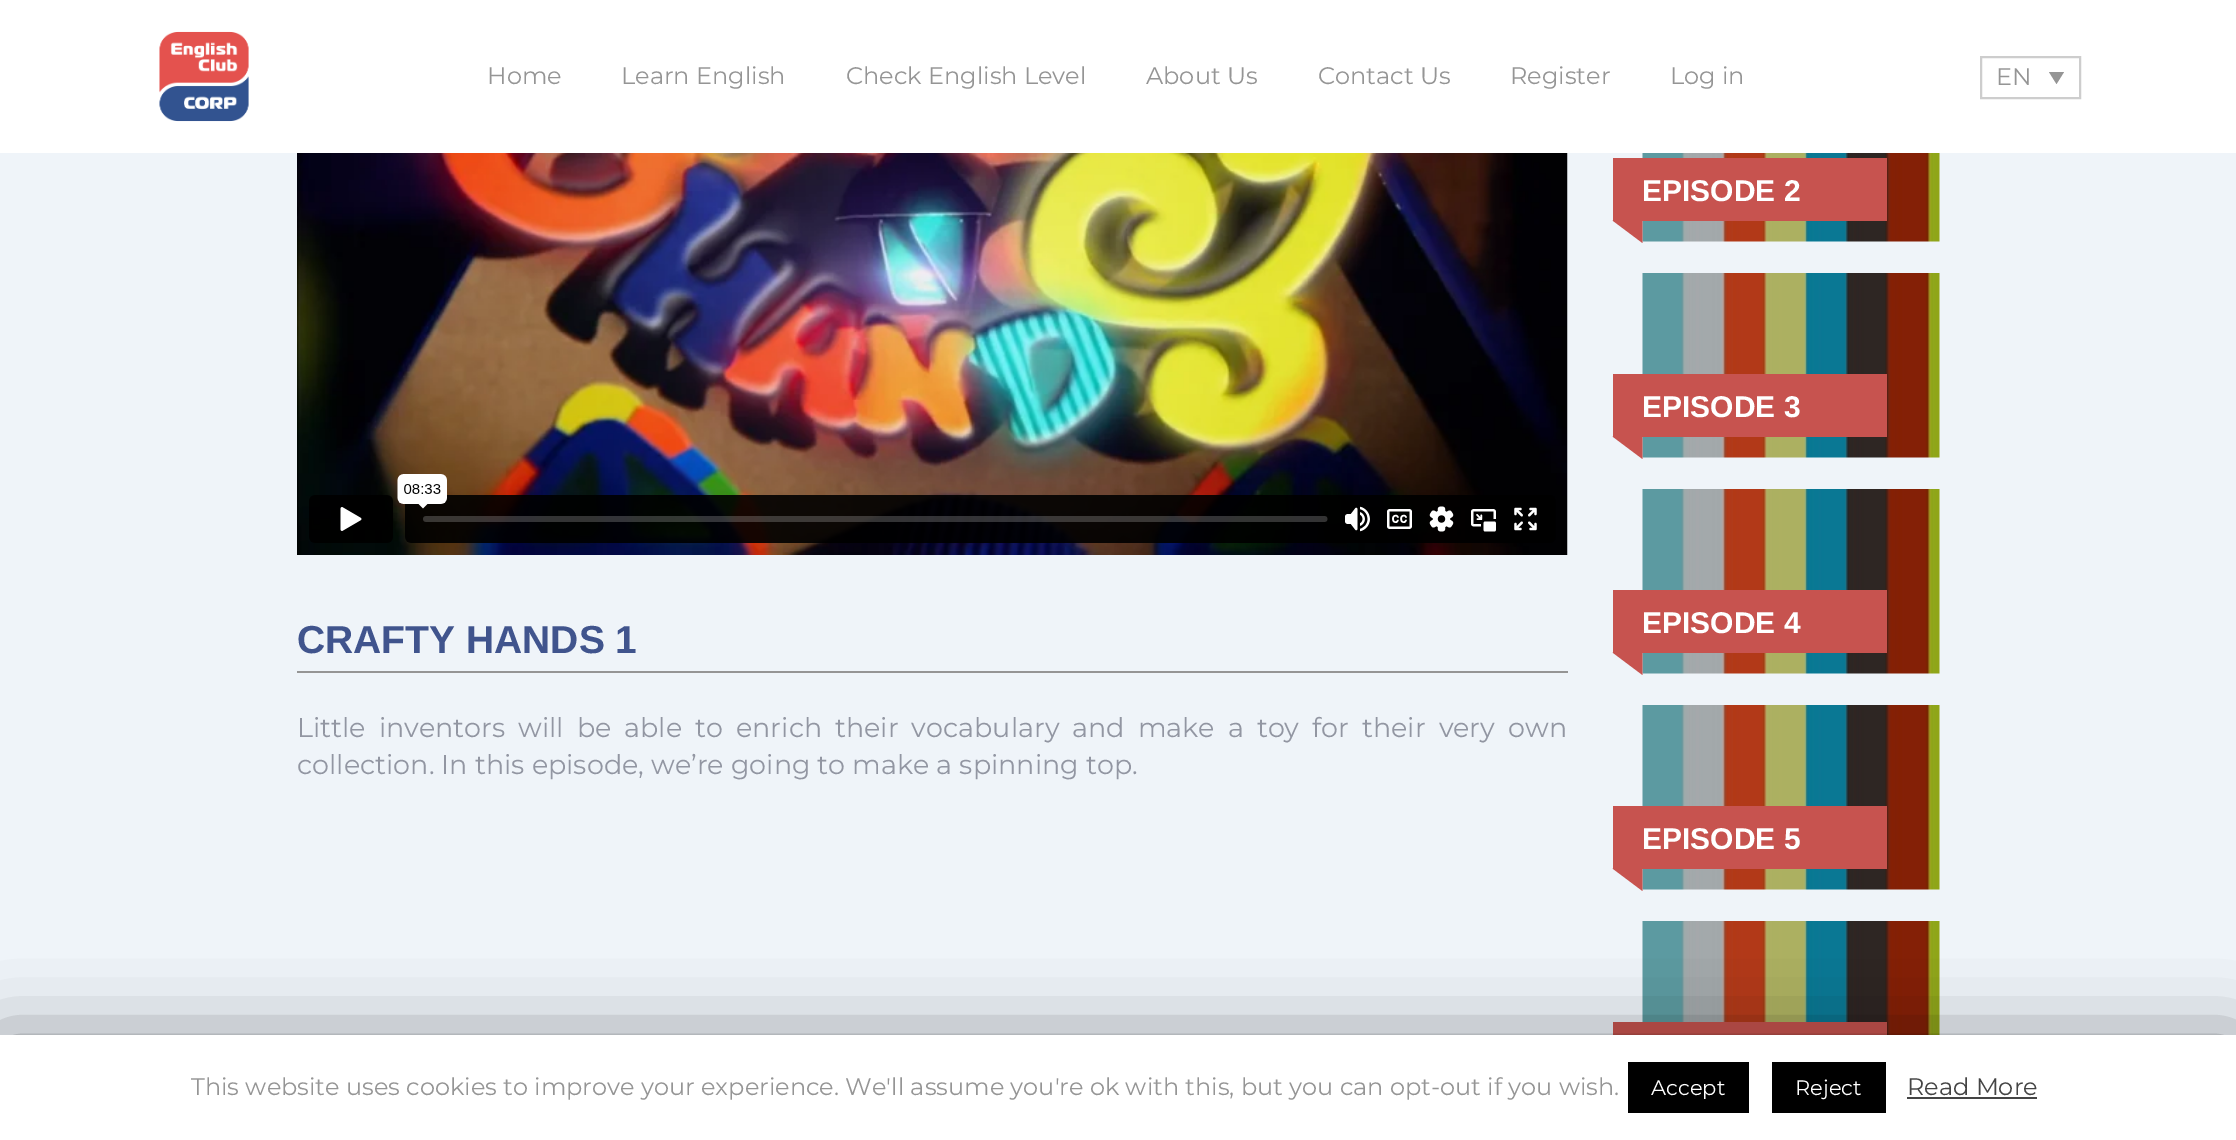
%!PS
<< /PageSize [2236 1140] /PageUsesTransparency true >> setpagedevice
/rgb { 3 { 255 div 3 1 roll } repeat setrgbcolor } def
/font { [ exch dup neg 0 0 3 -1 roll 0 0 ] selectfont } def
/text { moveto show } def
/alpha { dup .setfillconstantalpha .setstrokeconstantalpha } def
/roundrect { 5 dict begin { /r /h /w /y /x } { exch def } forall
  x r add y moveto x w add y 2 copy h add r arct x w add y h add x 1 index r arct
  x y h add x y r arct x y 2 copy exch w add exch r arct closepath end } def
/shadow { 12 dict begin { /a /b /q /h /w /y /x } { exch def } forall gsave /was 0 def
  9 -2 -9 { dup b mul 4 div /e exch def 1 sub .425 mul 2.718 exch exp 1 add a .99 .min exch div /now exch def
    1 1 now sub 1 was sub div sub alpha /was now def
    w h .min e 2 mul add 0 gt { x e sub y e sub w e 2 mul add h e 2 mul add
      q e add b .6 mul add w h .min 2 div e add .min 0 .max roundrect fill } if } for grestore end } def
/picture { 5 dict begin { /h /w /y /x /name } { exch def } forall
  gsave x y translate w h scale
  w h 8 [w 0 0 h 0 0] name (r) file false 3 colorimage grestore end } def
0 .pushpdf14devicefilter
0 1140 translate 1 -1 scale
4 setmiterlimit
239 244 249 rgb
0 0 2236 1140 rectfill
255 255 255 rgb
0 0 2236 153 rectfill
(img_01.rgb) 159 31 90 91 picture
205 205 205 rgb
2 setlinewidth
1981 57 99 41 rectstroke
149 149 149 rgb
2049 72 moveto 15 0 rlineto -7.5 12 rlineto closepath fill
(img_02.rgb) 297 153 1271 402 picture
297 671 1271 2 rectfill
(img_03.rgb) 1642 153 298 89 picture
199 83 79 rgb
1613 158 274 63 rectfill
1612.5 220.5 moveto 30 0 rlineto 0 22.5 rlineto closepath fill
(img_04.rgb) 1642 273 298 185 picture
1613 374 274 63 rectfill
1612.5 436.5 moveto 30 0 rlineto 0 22.5 rlineto closepath fill
(img_04.rgb) 1642 489 298 185 picture
1613 590 274 63 rectfill
1612.5 652.5 moveto 30 0 rlineto 0 22.5 rlineto closepath fill
(img_04.rgb) 1642 705 298 185 picture
1613 806 274 63 rectfill
1612.5 868.5 moveto 30 0 rlineto 0 22.5 rlineto closepath fill
(img_05.rgb) 1642 921 298 114 picture
1613 1022 274 13 rectfill
0 0 0 rgb
0 1043 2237 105 0 37.5 0.5 shadow
255 255 255 rgb
0 1035 2236 105 rectfill
0 0 0 rgb
1628 1062 121 51 rectfill
1772 1062 114 51 rectfill
68 68 68 rgb
1907 1097 130 2 rectfill
/Montserrat-Thin 24 font
149 149 149 rgb
(Home) 487 84 text
(Learn English) 621 84 text
(Check English Level) 846 84 text
(About Us) 1146 84 text
(Contact Us) 1318 84 text
(Register) 1510 84 text
(Log in) 1670 84 text
(EN) 1996 85 text
/LiberationSans-Bold 39 font
64 84 141 rgb
(CRAFTY HANDS 1) 297 653 text
/Montserrat-Thin 27 font
146 150 162 rgb
297 737 moveto 5.9 0 32 (Little inventors will be able to enrich their vocabulary and make a toy for their very own) widthshow
(collection. In this episode, we’re going to make a spinning top.) 297 774 text
/LiberationSans-Bold 30 font
255 255 255 rgb
(EPISODE 2) 1642 201 text
(EPISODE 3) 1642 417 text
(EPISODE 4) 1642 633 text
(EPISODE 5) 1642 849 text
/Montserrat-Thin 24 font
149 149 149 rgb
(This website uses cookies to improve your experience. We'll assume you're ok with this, but you can opt-out if you wish.) 191 1095 text
/Montserrat-Thin 21 font
255 255 255 rgb
(Accept) 1651 1095 text
(Reject) 1795 1095 text
/Montserrat-Thin 24 font
68 68 68 rgb
(Read More) 1907 1095 text
.poppdf14devicefilter showpage
